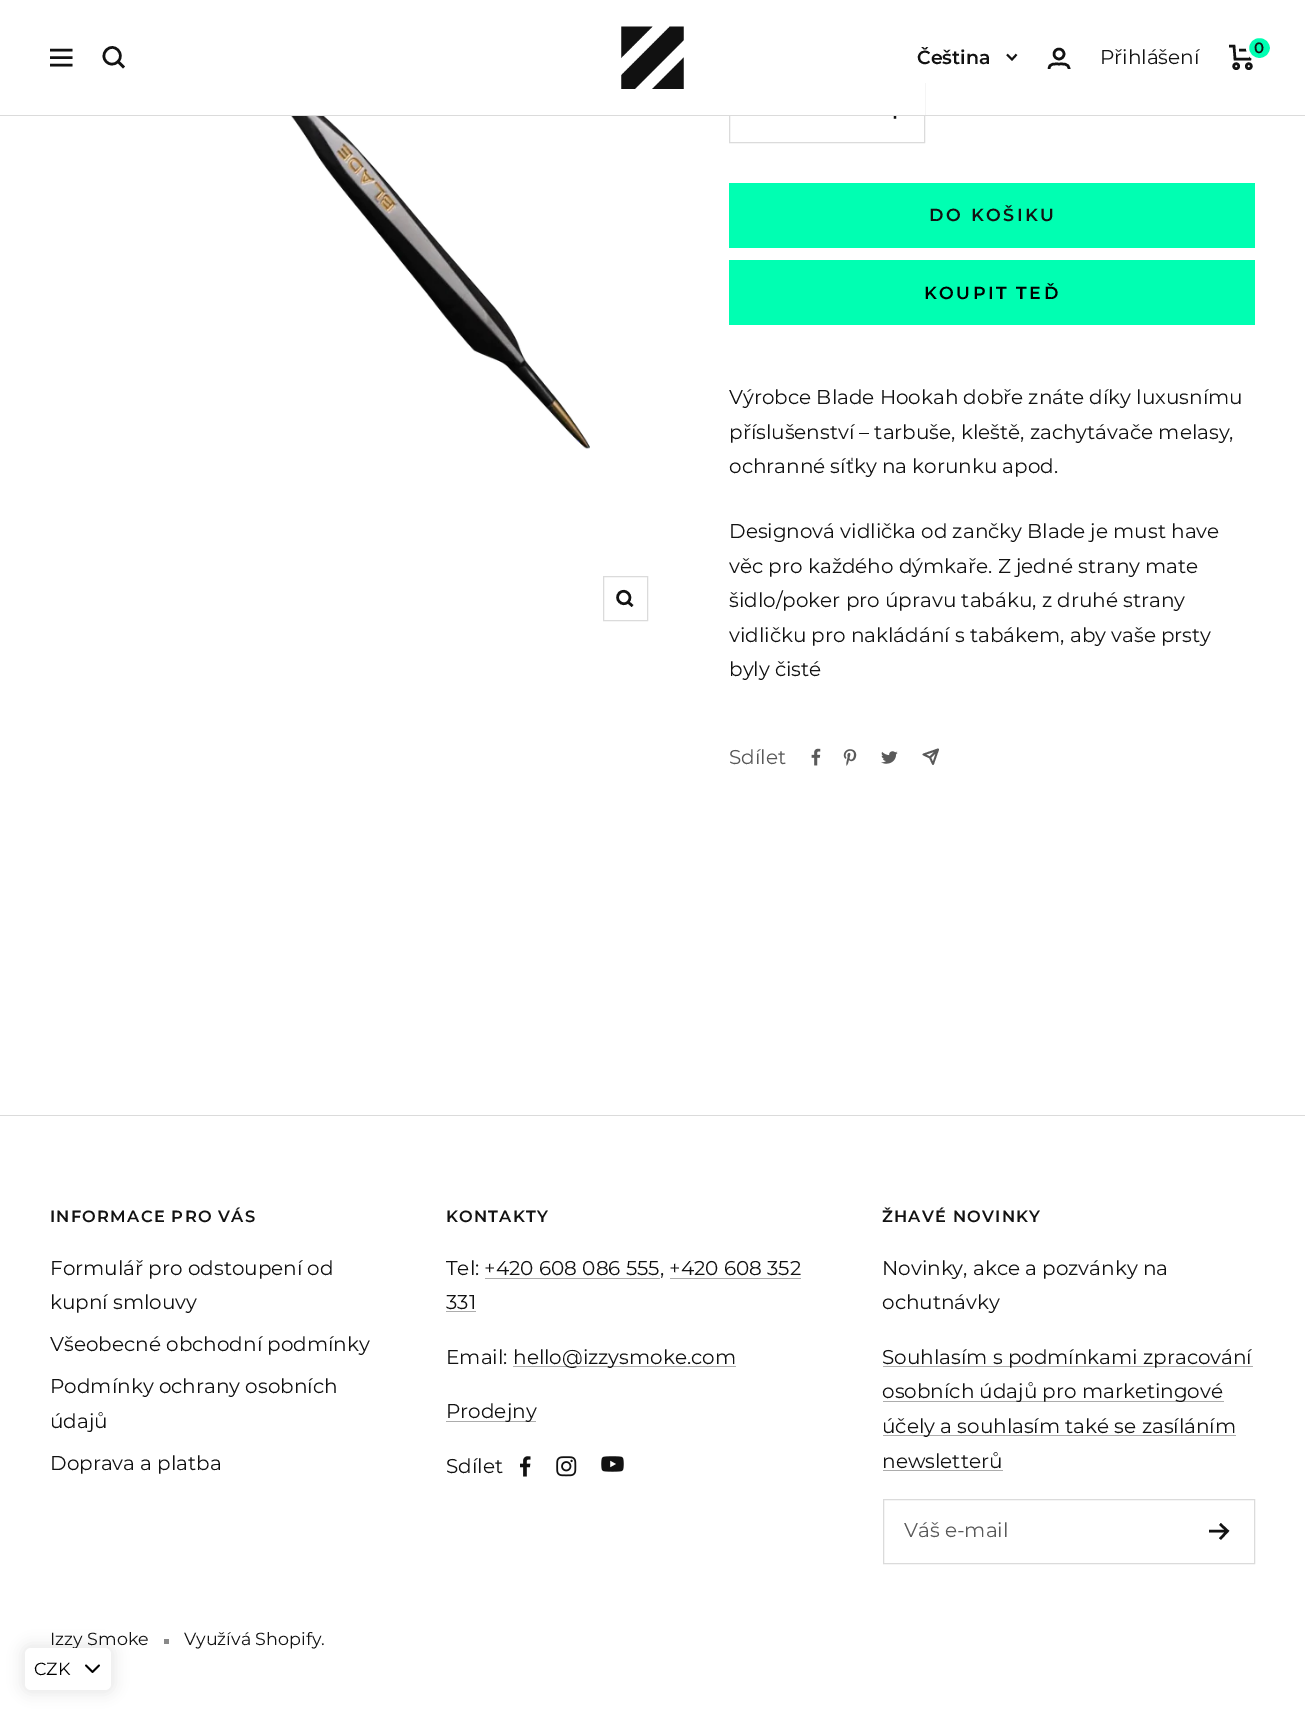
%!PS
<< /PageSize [1305 1715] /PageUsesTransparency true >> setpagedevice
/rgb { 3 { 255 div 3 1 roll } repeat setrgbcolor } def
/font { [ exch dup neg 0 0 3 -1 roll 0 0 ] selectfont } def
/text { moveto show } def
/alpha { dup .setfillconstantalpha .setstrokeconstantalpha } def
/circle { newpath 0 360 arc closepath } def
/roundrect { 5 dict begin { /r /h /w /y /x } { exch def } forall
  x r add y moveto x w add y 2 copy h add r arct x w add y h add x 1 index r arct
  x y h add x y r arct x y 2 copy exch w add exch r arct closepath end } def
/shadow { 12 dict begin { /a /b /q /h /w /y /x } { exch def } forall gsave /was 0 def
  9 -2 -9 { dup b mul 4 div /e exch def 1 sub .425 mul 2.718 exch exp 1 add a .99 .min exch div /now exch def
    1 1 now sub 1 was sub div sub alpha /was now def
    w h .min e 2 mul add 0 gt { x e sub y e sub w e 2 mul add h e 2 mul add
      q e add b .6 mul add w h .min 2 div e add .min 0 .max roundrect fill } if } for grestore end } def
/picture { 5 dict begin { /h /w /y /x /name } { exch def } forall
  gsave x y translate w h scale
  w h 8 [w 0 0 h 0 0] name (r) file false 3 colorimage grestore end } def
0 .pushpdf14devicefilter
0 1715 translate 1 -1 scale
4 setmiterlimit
255 255 255 rgb
0 0 1305 1715 rectfill
219 219 219 rgb
729.5 83.5 195 59 rectstroke
0 115 1305 1 rectfill
255 255 255 rgb
729 83 196 32 rectfill
18 18 18 rgb
2.5 setlinewidth
50 50 moveto 22.5 0 rlineto 50 65 moveto 22.5 0 rlineto closepath 50 57.5 moveto 22.5 0 rlineto closepath stroke
118 61.5 moveto 7.5 -7.5 -4 -19.5 -11.5 -11.5 rcurveto -8 8 3.5 19.5 11.5 11.5 rcurveto closepath 118 61.5 moveto 6 6 rlineto stroke
(img_01.rgb) 621 26 63 63 picture
1.9 setlinewidth
1007 54.5 moveto 5 5 rlineto 4.5 -5 rlineto stroke
2.5 setlinewidth
1059 54 5 circle stroke
1049 69 moveto 0 -6 6 -5 10 -5 rcurveto 3.5 0 10 -1 10 5 rcurveto stroke
1229 46 moveto 5 0 rlineto 1 13 rlineto 15 0 rlineto 2.5 -9 rlineto -13.5 0 rlineto stroke
1236.2 66.2 2.5 circle stroke
1248.8 66.2 2.5 circle stroke
0 255 178 rgb
1247.5 36.5 24 23 11.5 roundrect gsave fill grestore
255 255 255 rgb
3 setlinewidth
stroke
(img_02.rgb) 291 116 299 333 picture
219 219 219 rgb
1 setlinewidth
603.5 576.5 44 44 rectstroke
18 18 18 rgb
2.5 setlinewidth
628 602 moveto 6 -6 -3 -14.5 -8.5 -9 rcurveto -6 6 3 14.5 8.5 9 rcurveto closepath 628 602 moveto 4.5 4 rlineto stroke
(img_03.rgb) 893 116 4 3 picture
0 255 178 rgb
729 183 526 65 rectfill
729 260 526 65 rectfill
(img_04.rgb) 811 748 10 18 picture
(img_05.rgb) 843 749 14 17 picture
(img_06.rgb) 881 751 17 13 picture
89 89 89 rgb
1.8 setlinewidth
1 setlinecap
1 setlinejoin
938 749.5 moveto -5 14.5 rlineto -3 -6.5 rlineto 938 749.5 moveto -14.5 5 rlineto 6.5 3 rlineto 938 749.5 moveto -8 8 rlineto stroke
219 219 219 rgb
0 1115 1305 1 rectfill
172 172 172 rgb
485 1278 175 1 rectfill
670 1278 131 1 rectfill
446 1311 30 1 rectfill
513 1366 223 1 rectfill
446 1421 90 1 rectfill
(img_07.rgb) 520 1456 11 21 picture
(img_08.rgb) 556 1456 21 21 picture
(img_09.rgb) 601 1456 23 16 picture
883 1366 370 1 rectfill
883 1401 341 1 rectfill
883 1435 353 1 rectfill
883 1470 120 1 rectfill
219 219 219 rgb
1 setlinewidth
0 setlinecap
0 setlinejoin
883.5 1499.5 371 64 rectstroke
18 18 18 rgb
2.5 setlinewidth
1209 1531 moveto 18.5 0 rlineto 1220 1524 moveto 7.5 7 rlineto -7.5 8 rlineto stroke
137 137 137 rgb
164 1639 5 5 rectfill
60 60 60 rgb
20 1643 96 52 11 6 0.09 shadow
/Montserrat-SemiBold 19 font
18 18 18 rgb
(Čeština) 917 64 text
/Montserrat-Regular 20 font
(Přihlášení) 1100 64 text
/Montserrat-SemiBold 15 font
(0) 1254 53 text
/Montserrat-SemiBold 17.5 font
929 221 moveto 2.5 0 (DO KOŠIKU) ashow
0 0 0 rgb
924 299 moveto 2.5 0 (KOUPIT TEĎ) ashow
/Montserrat-Regular 20 font
18 18 18 rgb
(Výrobce Blade Hookah dobře znáte díky luxusnímu) 729 404 text
(příslušenství – tarbuše, kleště, zachytávače melasy,) 729 439 text
(ochranné síťky na korunku apod.) 729 473 text
(Designová vidlička od zančky Blade je must have) 729 538 text
(věc pro každého dýmkaře. Z jedné strany mate) 729 573 text
(šidlo/poker pro úpravu tabáku, z druhé strany) 729 607 text
(vidličku pro nakládání s tabákem, aby vaše prsty) 729 642 text
(byly čisté) 729 676 text
89 89 89 rgb
(Sdílet) 729 764 text
/Montserrat-SemiBold 16.25 font
18 18 18 rgb
50 1222 moveto 1.25 0 (INFORMACE PRO VÁS) ashow
/Montserrat-Regular 20 font
(Formulář pro odstoupení od) 50 1275 text
(kupní smlouvy) 50 1309 text
(Všeobecné obchodní podmínky) 50 1351 text
(Podmínky ochrany osobních) 50 1393 text
(údajů) 50 1428 text
(Doprava a platba) 50 1470 text
/Montserrat-SemiBold 16.25 font
446 1222 moveto 1.25 0 (KONTAKTY) ashow
/Montserrat-Regular 20 font
(Tel: +420 608 086 555, +420 608 352) 446 1275 text
(331) 446 1309 text
(Email:) 446 1364 text
(hello@izzysmoke.com) 513 1364 text
(Prodejny) 446 1418 text
(Sdílet) 446 1473 text
/Montserrat-SemiBold 16.25 font
882 1222 moveto 1.25 0 (ŽHAVÉ NOVINKY) ashow
/Montserrat-Regular 20 font
(Novinky, akce a pozvánky na) 882 1275 text
(ochutnávky) 882 1309 text
(Souhlasím s podmínkami zpracování) 882 1364 text
(osobních údajů pro marketingové) 882 1398 text
(účely a souhlasím také se zasíláním) 882 1433 text
(newsletterů) 882 1468 text
89 89 89 rgb
(Váš e-mail) 904 1537 text
/Montserrat-Regular 17.5 font
18 18 18 rgb
(Izzy Smoke) 50 1645 text
(Využívá Shopify.) 184 1645 text
255 255 255 rgb
25 1648 86 42 6 roundrect fill
0 0 0 rgb
(CZK) 34 1675 text
(img_10.rgb) 85 1664 15 9 picture
.poppdf14devicefilter showpage
